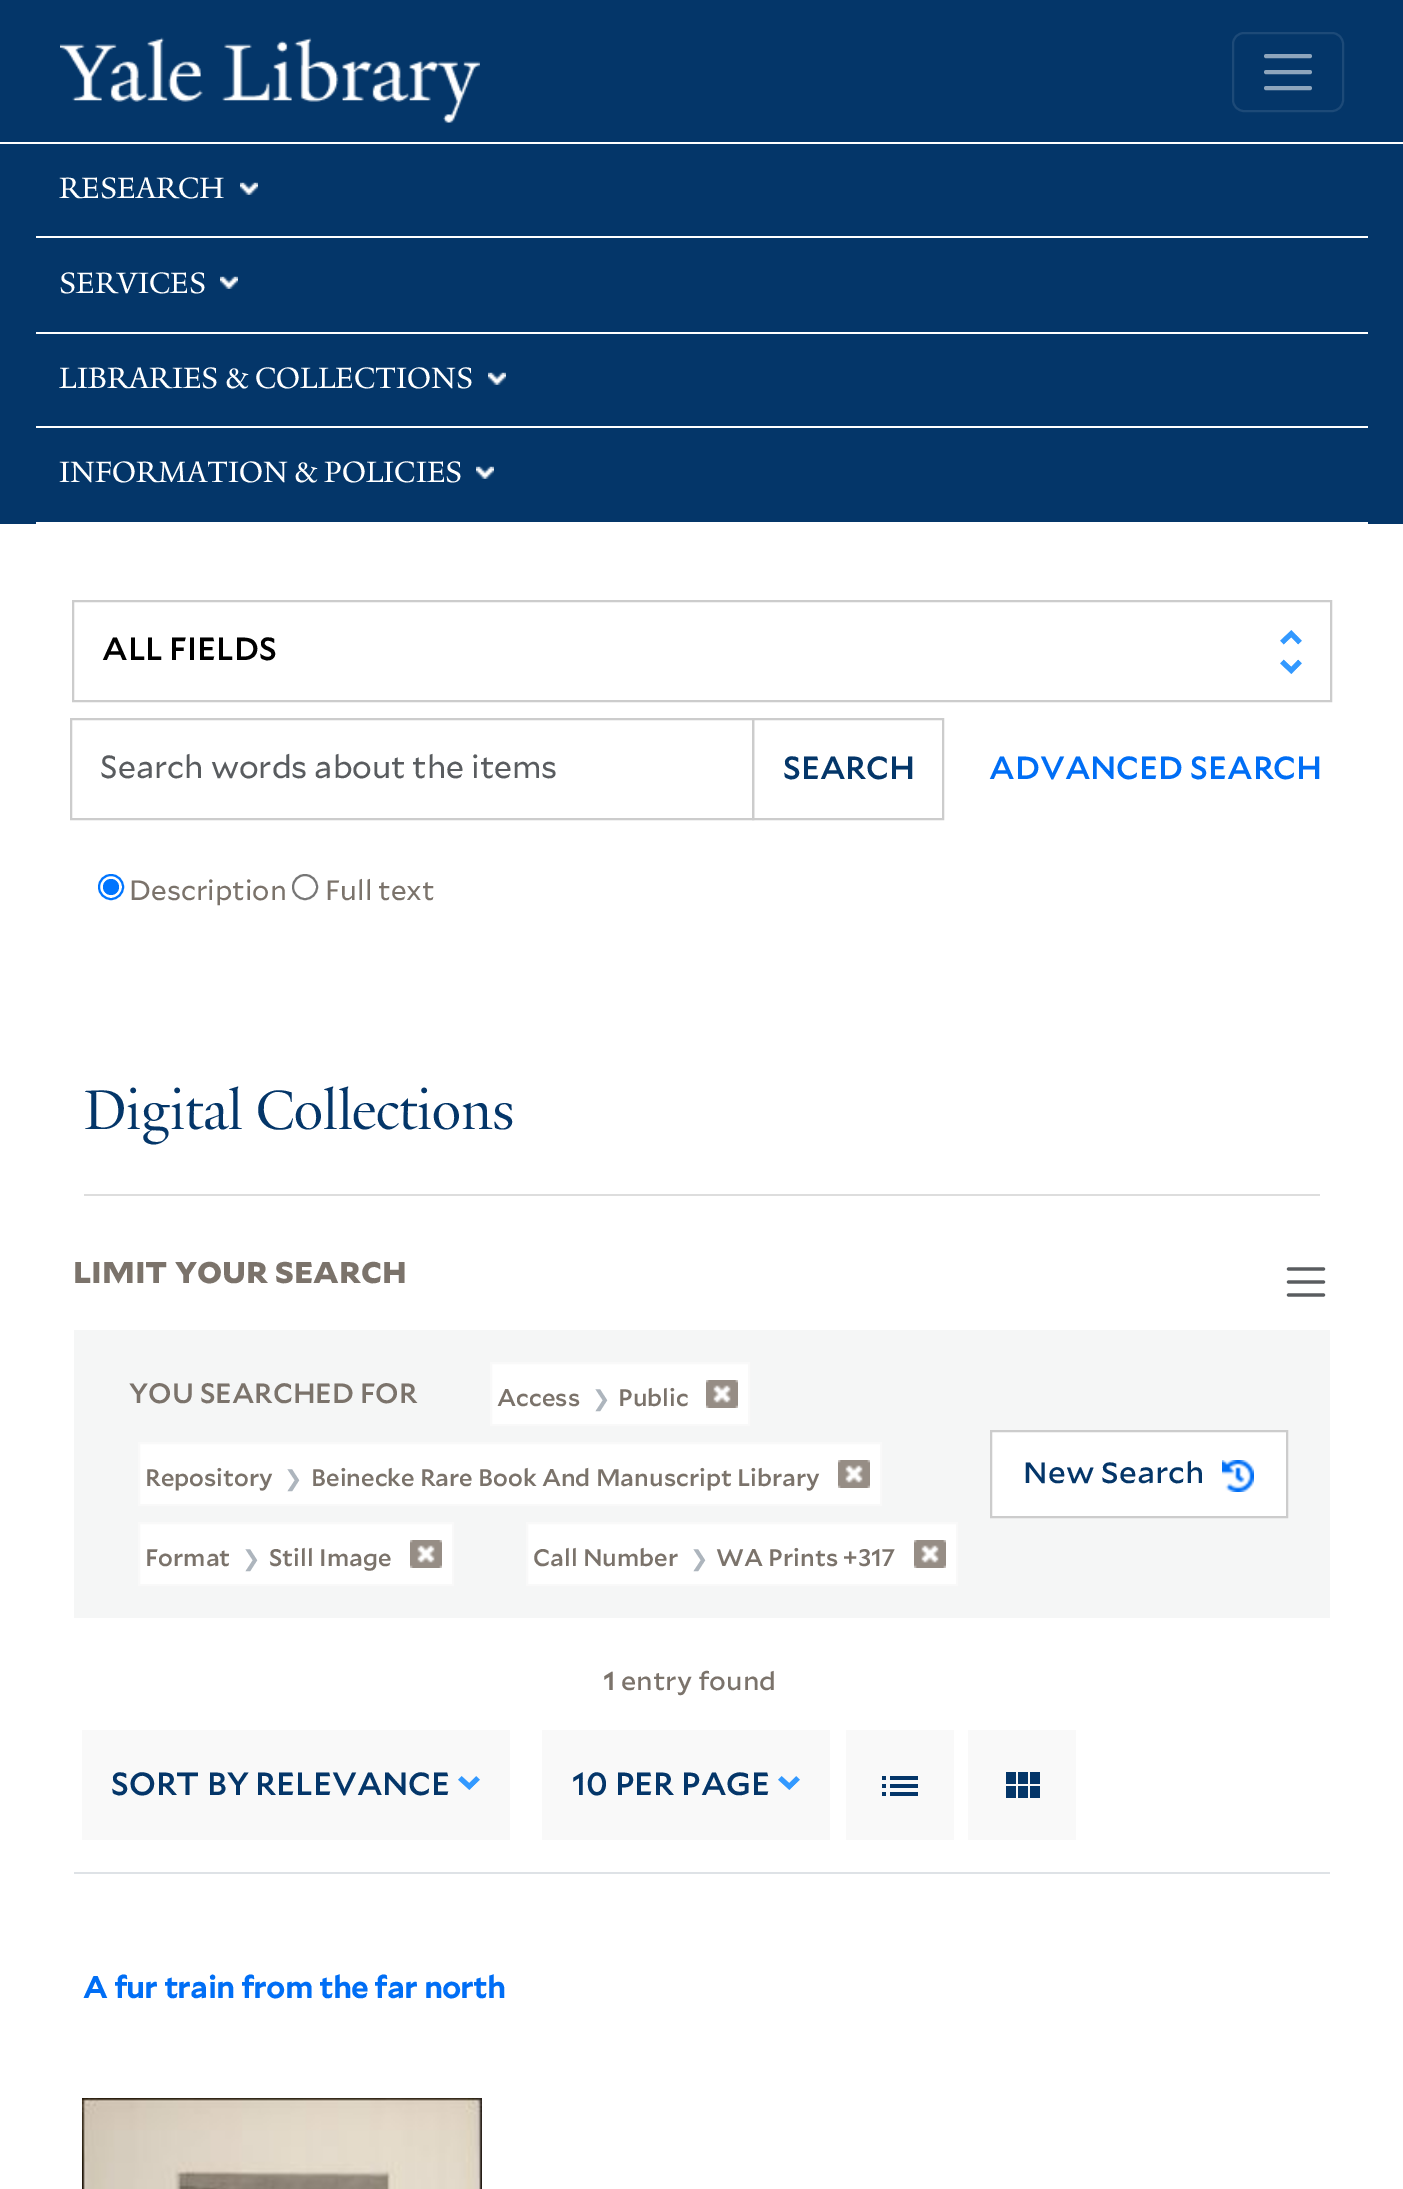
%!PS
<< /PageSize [1403 2189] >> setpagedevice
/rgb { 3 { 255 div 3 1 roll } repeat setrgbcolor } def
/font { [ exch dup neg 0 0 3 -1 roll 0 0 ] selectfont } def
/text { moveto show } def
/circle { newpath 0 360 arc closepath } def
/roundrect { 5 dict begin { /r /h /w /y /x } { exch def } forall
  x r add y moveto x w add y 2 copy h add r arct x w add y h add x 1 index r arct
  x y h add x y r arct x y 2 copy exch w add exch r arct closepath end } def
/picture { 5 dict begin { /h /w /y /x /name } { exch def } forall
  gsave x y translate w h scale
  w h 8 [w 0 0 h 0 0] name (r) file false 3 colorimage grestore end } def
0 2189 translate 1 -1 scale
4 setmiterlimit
255 255 255 rgb
0 0 1403 2189 rectfill
4 54 105 rgb
0 0 1403 142 rectfill
(img_01.rgb) 60 37 420 86 picture
29 74 120 rgb
2 setlinewidth
1233 33 110 78 11 roundrect stroke
142 165 188 rgb
4 setlinewidth
1 setlinecap
1266 56 moveto 44 0 rlineto 1266 72 moveto 44 0 rlineto 1266 88 moveto 44 0 rlineto stroke
4 54 105 rgb
0 144 1403 380 rectfill
255 255 255 rgb
36 236 1332 2 rectfill
(img_02.rgb) 240 182 18 13 picture
36 332 1332 2 rectfill
(img_02.rgb) 220 276 18 13 picture
36 426 1332 2 rectfill
(img_02.rgb) 488 372 18 13 picture
36 522 1332 2 rectfill
(img_02.rgb) 476 466 18 13 picture
(img_03.rgb) 1280 630 22 44 picture
204 204 204 rgb
2 setlinewidth
0 setlinecap
73 601 1258 100 rectstroke
71 719 682 100 rectstroke
753 719 190 100 rectstroke
0 117 255 rgb
111 887 12 circle stroke
111 887 8 circle fill
118 118 118 rgb
305 887 12 circle stroke
221 221 221 rgb
84 1194 1236 2 rectfill
89 92 95 rgb
3.2 setlinewidth
1 setlinecap
1288.5 1269 moveto 35 0 rlineto 1288.5 1282 moveto 35 0 rlineto 1288.5 1295 moveto 35 0 rlineto stroke
245 246 246 rgb
74 1330 1256 288 rectfill
255 255 255 rgb
491 1363 moveto 258 0 rlineto 0 62 rlineto -258 0 rlineto closepath gsave fill grestore
249 249 249 rgb
2 setlinewidth
0 setlinecap
stroke
(img_04.rgb) 706 1380 32 28 picture
255 255 255 rgb
139 1443 moveto 742 0 rlineto 0 62 rlineto -742 0 rlineto closepath gsave fill grestore
249 249 249 rgb
stroke
(img_04.rgb) 838 1460 32 28 picture
255 255 255 rgb
991 1431 moveto 296 0 rlineto 0 86 rlineto -296 0 rlineto closepath gsave fill grestore
204 204 204 rgb
stroke
(img_05.rgb) 1222 1460 32 32 picture
255 255 255 rgb
139 1523 moveto 314 0 rlineto 0 62 rlineto -314 0 rlineto closepath gsave fill grestore
249 249 249 rgb
stroke
(img_04.rgb) 410 1540 32 28 picture
255 255 255 rgb
527 1523 moveto 430 0 rlineto 0 62 rlineto -430 0 rlineto closepath gsave fill grestore
249 249 249 rgb
stroke
(img_04.rgb) 914 1540 32 28 picture
222 226 230 rgb
74 1872 1256 2 rectfill
249 249 249 rgb
82 1730 428 110 rectfill
(img_06.rgb) 458 1776 22 14 picture
542 1730 288 110 rectfill
(img_06.rgb) 778 1776 22 14 picture
846 1730 108 110 rectfill
(img_07.rgb) 882 1776 36 20 picture
968 1730 108 110 rectfill
(img_08.rgb) 1006 1772 34 26 picture
(img_09.rgb) 82 2098 400 91 picture
/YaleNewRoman-Regular 32 font
255 255 255 rgb
(RESEARCH) 59 198 text
(SERVICES) 59 293 text
(LIBRARIES & COLLECTIONS) 59 388 text
(INFORMATION & POLICIES) 59 482 text
/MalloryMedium-Medium 32 font
0 0 0 rgb
(ALL FIELDS) 102 660 text
/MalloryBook-Regular 32 font
89 92 95 rgb
(Search words about the items) 100 778 text
/MalloryMedium-Medium 32 font
4 54 105 rgb
(SEARCH) 783 779 text
0 110 245 rgb
(ADVANCED SEARCH) 989 779 text
/MalloryBook-Regular 28 font
123 115 107 rgb
(Description) 129 900 text
(Full text) 325 900 text
/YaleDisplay-Regular 60 font
4 54 105 rgb
(Digital Collections) 84 1129 text
/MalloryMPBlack-Black 28.75 font
123 115 107 rgb
(LIMIT YOUR SEARCH) 73 1283 text
/MalloryMedium-Medium 28 font
(YOU SEARCHED FOR) 129 1403 text
/MalloryMedium-Medium 24 font
(Access) 497 1406 text
/DejaVuSans-Regular 22 font
173 181 189 rgb
(❯) 592 1406 text
/MalloryMedium-Medium 24 font
123 115 107 rgb
(Public) 618 1406 text
(Repository) 145 1486 text
/DejaVuSans-Regular 22 font
173 181 189 rgb
(❯) 284 1486 text
/MalloryMedium-Medium 24 font
123 115 107 rgb
(Beinecke Rare Book And Manuscript Library) 311 1486 text
/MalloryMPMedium-Medium 28 font
4 54 105 rgb
(New Search) 1023 1483 text
/MalloryMedium-Medium 24 font
123 115 107 rgb
(Format) 145 1566 text
/DejaVuSans-Regular 22 font
173 181 189 rgb
(❯) 242 1566 text
/MalloryMedium-Medium 24 font
123 115 107 rgb
(Still Image) 269 1566 text
(Call Number) 533 1566 text
/DejaVuSans-Regular 22 font
173 181 189 rgb
(❯) 690 1566 text
/MalloryMedium-Medium 24 font
123 115 107 rgb
(WA Prints +317) 716 1566 text
/MalloryMPMedium-Bold 24 font
(1) 603 1690 text
/MalloryMPMedium-Medium 24 font
(entry found) 621 1690 text
/MalloryMedium-Medium 32 font
4 54 105 rgb
(SORT BY RELEVANCE) 111 1795 text
(10 PER PAGE) 572 1795 text
/MalloryMedium-Bold 30 font
0 110 245 rgb
(A fur train from the far north) 83 1998 text
showpage
